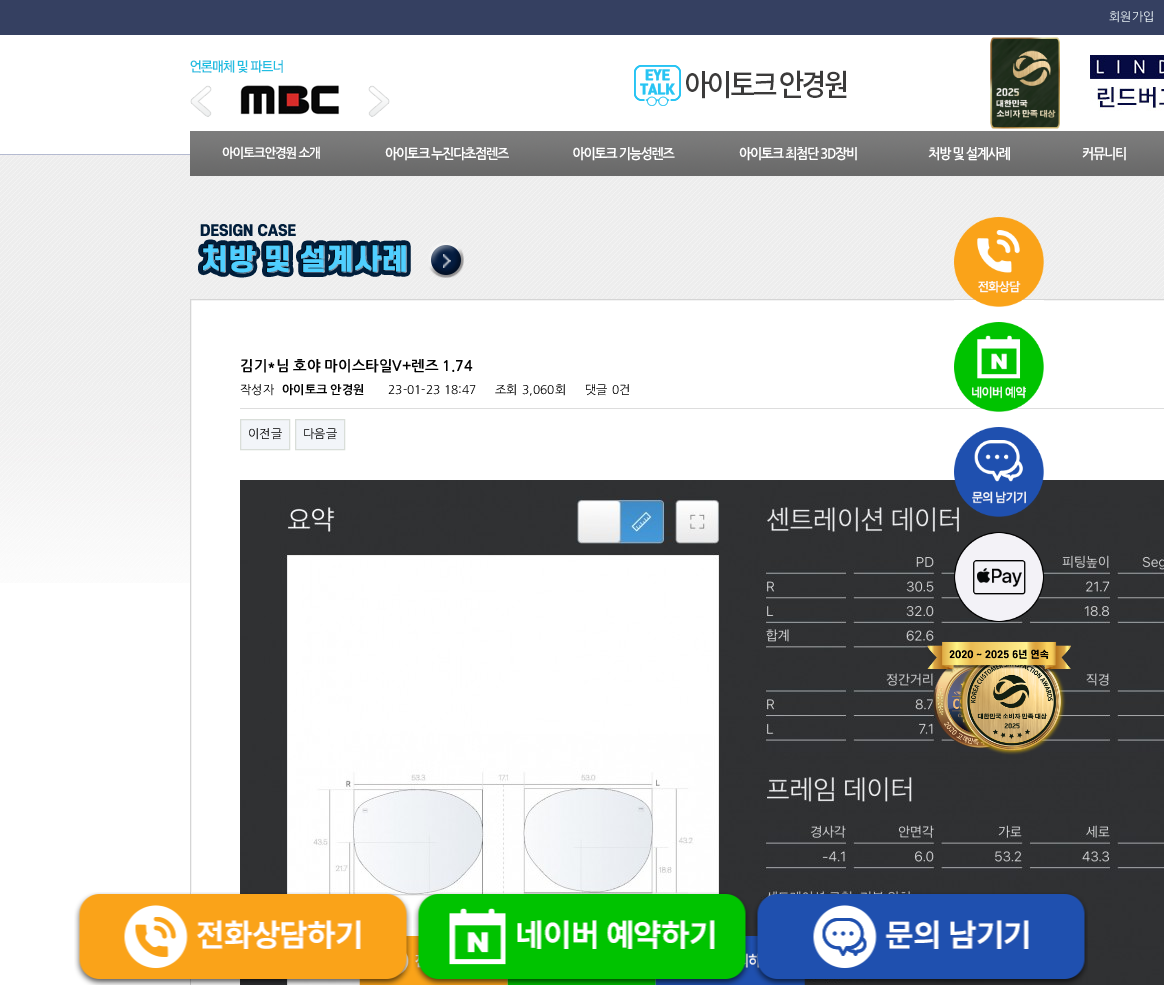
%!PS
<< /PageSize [1164 985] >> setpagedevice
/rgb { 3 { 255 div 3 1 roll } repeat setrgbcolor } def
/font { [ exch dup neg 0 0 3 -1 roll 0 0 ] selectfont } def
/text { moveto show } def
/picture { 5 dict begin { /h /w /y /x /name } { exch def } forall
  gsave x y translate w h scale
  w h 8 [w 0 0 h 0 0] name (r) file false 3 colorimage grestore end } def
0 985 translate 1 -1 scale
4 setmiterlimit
255 255 255 rgb
0 0 1164 985 rectfill
(img_01.rgb) 0 154 1164 429 picture
53 64 97 rgb
0 0 1164 35 rectfill
(img_02.rgb) 190 60 93 13 picture
(img_03.rgb) 190 85 22 32 picture
(img_04.rgb) 368 85 22 32 picture
(img_05.rgb) 240 85 100 30 picture
(img_06.rgb) 634 65 213 41 picture
(img_07.rgb) 990 37 70 92 picture
(img_08.rgb) 1090 55 74 56 picture
(img_09.rgb) 190 131 162 45 picture
(img_10.rgb) 352 131 189 45 picture
(img_11.rgb) 541 131 165 45 picture
(img_12.rgb) 706 131 184 45 picture
(img_13.rgb) 890 131 158 45 picture
(img_14.rgb) 1048 131 112 45 picture
(img_15.rgb) 1160 131 4 45 picture
(img_16.rgb) 198 224 266 54 picture
255 255 255 rgb
191 300 973 283 rectfill
213 213 213 rgb
190.5 299.5 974 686 rectstroke
221 221 221 rgb
240 408 924 1 rectfill
242 245 249 rgb
240.5 419.5 moveto 49 0 rlineto 0 30 rlineto -49 0 rlineto closepath gsave fill grestore
217 222 217 rgb
stroke
242 245 249 rgb
295.5 419.5 moveto 49 0 rlineto 0 30 rlineto -49 0 rlineto closepath gsave fill grestore
217 222 217 rgb
stroke
(img_17.rgb) 240 480 924 505 picture
(img_18.rgb) 954 217 90 90 picture
(img_19.rgb) 954 322 90 90 picture
(img_20.rgb) 954 427 90 90 picture
(img_21.rgb) 954 532 90 90 picture
(img_22.rgb) 925 641 146 114 picture
(img_26.rgb) 359 936 149 49 picture
(img_23.rgb) 74 892 338 93 picture
(img_27.rgb) 507 979 149 6 picture
(img_28.rgb) 655 936 150 49 picture
(img_24.rgb) 413 892 338 93 picture
(img_25.rgb) 752 892 336 93 picture
/NanumGothic-Regular 12 font
234 243 246 rgb
(회원가입) 1109 21 text
/NanumGothic-Bold 14.4 font
0 0 0 rgb
(김기*님 호야 마이스타일V+렌즈 1.74) 240 371 text
/NanumGothic-Regular 12 font
(작성자) 240 394 text
/NanumGothic-Bold 12 font
(아이토크 안경원) 282 394 text
/NanumGothic-Regular 12 font
(23-01-23 18:47) 388 394 text
(조회) 495 394 text
(3,060회) 522 394 text
(댓글) 585 394 text
(0건) 612 394 text
(이전글) 248 438 text
(다음글) 303 438 text
showpage
